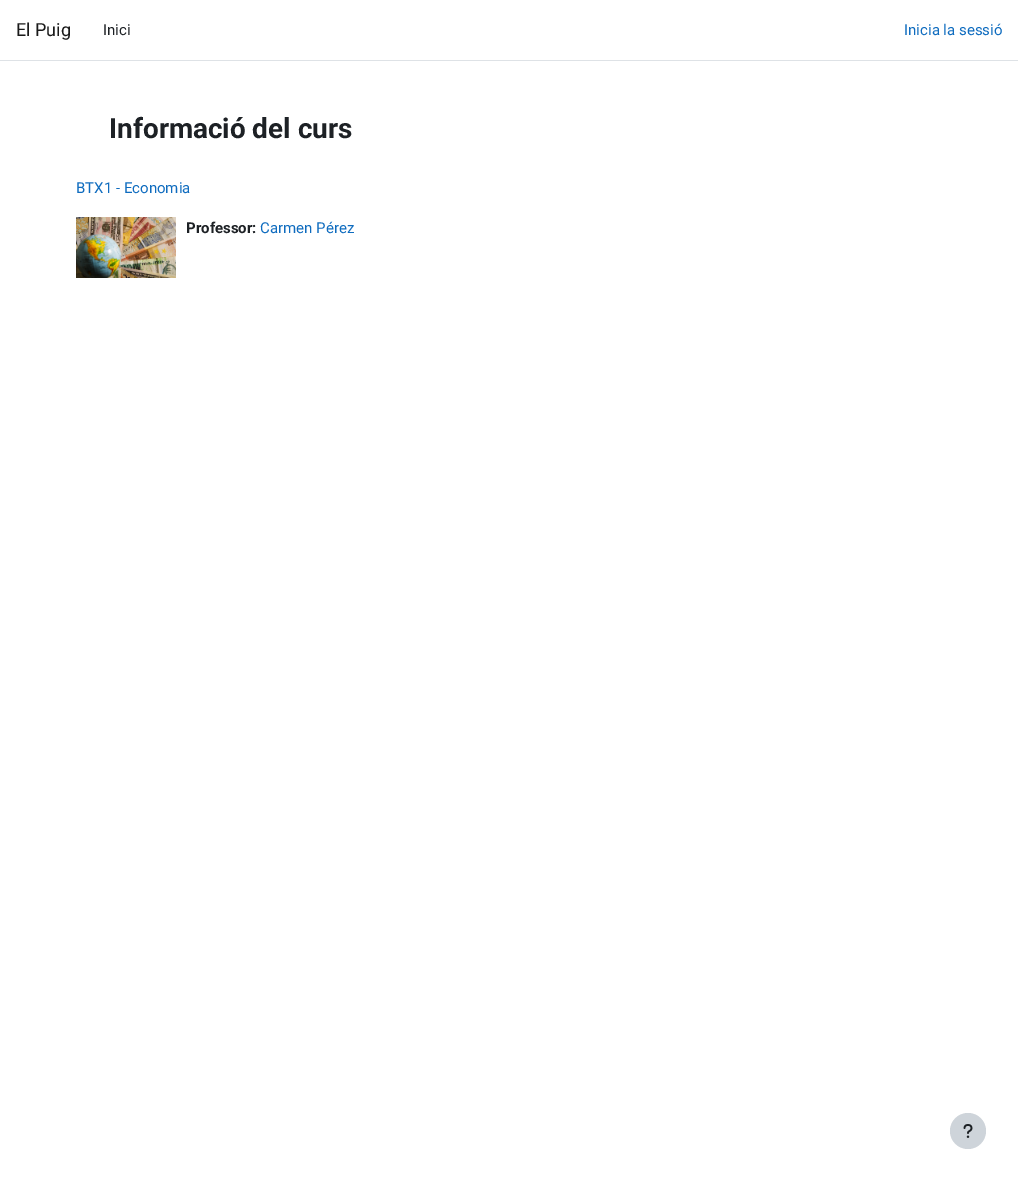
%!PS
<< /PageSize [1018 1181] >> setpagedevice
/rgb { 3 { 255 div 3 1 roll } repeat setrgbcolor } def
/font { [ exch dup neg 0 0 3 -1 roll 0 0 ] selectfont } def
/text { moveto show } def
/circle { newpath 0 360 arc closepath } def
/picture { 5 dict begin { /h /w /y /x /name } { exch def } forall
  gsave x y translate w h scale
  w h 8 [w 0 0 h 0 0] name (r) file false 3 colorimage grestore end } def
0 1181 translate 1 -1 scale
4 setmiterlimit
255 255 255 rgb
0 0 1018 1181 rectfill
222 226 230 rgb
0 60 1018 1 rectfill
(img_01.rgb) 76 217 100 61 picture
206 212 218 rgb
968 1131 18 circle fill
(img_02.rgb) 963 1124 10 14 picture
/Roboto-Regular 18 font
26 26 26 rgb
(El Puig) 16 36 text
/Roboto-Regular 15 font
29 33 37 rgb
(Inici) 103 35 text
15 108 191 rgb
(Inicia la sessió) 904 35 text
/Roboto-Bold 27.9 font
29 33 37 rgb
(Informació del curs) 109 138 text
/Roboto-Regular 15 font
15 108 191 rgb
(BTX1 - Economia) 76 193 text
/Roboto-Bold 15 font
29 33 37 rgb
(Professor:) 186 233 text
/Roboto-Regular 15 font
15 108 191 rgb
(Carmen Pérez) 260 233 text
showpage
